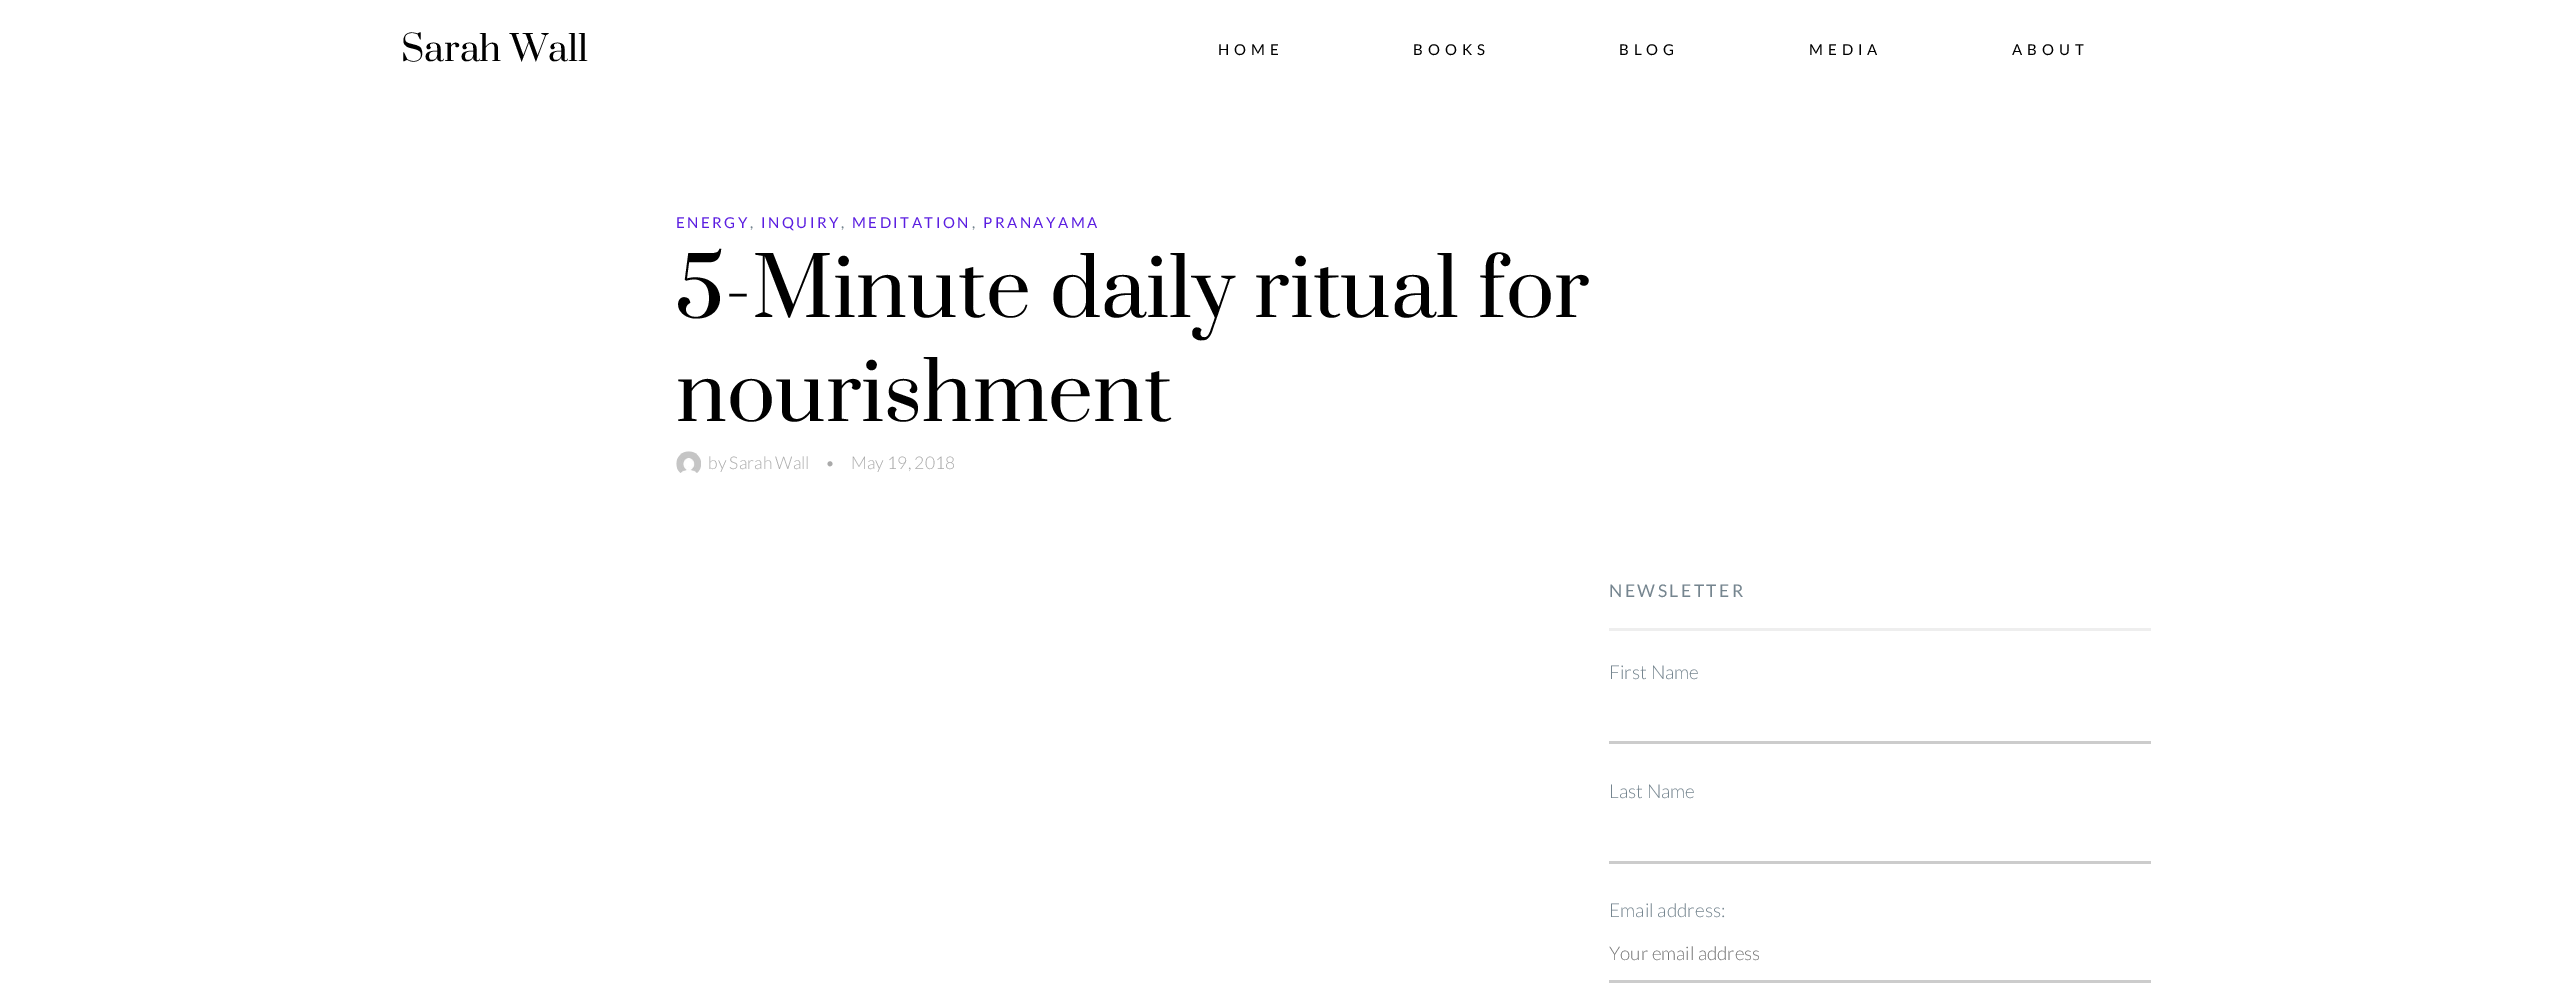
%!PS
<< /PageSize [2552 985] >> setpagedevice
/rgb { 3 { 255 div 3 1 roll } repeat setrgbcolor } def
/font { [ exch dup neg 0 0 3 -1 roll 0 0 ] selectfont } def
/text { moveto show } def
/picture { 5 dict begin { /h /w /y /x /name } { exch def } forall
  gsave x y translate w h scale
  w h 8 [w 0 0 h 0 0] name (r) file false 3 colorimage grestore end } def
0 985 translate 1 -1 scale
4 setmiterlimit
255 255 255 rgb
0 0 2552 985 rectfill
(img_01.rgb) 676 451 25 22 picture
238 238 238 rgb
1609 628 542 3 rectfill
204 204 204 rgb
1609 741 542 3 rectfill
1609 861 542 3 rectfill
1609 980 542 3 rectfill
/Prata-Regular 35 font
0 0 0 rgb
(Sarah Wall) 401 61 text
/Lato-Regular 15 font
1218 55 moveto 5 0 (HOME) ashow
1413 55 moveto 5 0 (BOOKS) ashow
1619 55 moveto 5 0 (BLOG) ashow
1809 55 moveto 5 0 (MEDIA) ashow
2012 55 moveto 5 0 (ABOUT) ashow
91 30 225 rgb
676 228 moveto 2.5 0 (ENERGY) ashow
117 133 143 rgb
750 228 moveto 2.5 0 (,) ashow
91 30 225 rgb
761 228 moveto 2.5 0 (INQUIRY) ashow
117 133 143 rgb
841 228 moveto 2.5 0 (,) ashow
91 30 225 rgb
852 228 moveto 2.5 0 (MEDITATION) ashow
117 133 143 rgb
972 228 moveto 2.5 0 (,) ashow
91 30 225 rgb
983 228 moveto 2.5 0 (PRANAYAMA) ashow
/Prata-Regular 80 font
0 0 0 rgb
(5-Minute daily ritual for) 676 317 text
(nourishment) 676 421 text
/Lato-Light 17.5 font
170 170 170 rgb
(by Sarah Wall) 708 469 text
(•) 825 469 text
(May 19, 2018) 851 469 text
/Lato-Regular 17.5 font
117 133 143 rgb
1609 597 moveto 2.5 0 (NEWSLETTER) ashow
/Lato-Light 19 font
(First Name) 1609 679 text
(Last Name) 1609 798 text
(Email address:) 1609 917 text
/Lato-Light 18.75 font
117 117 117 rgb
(Your email address) 1609 960 text
showpage
